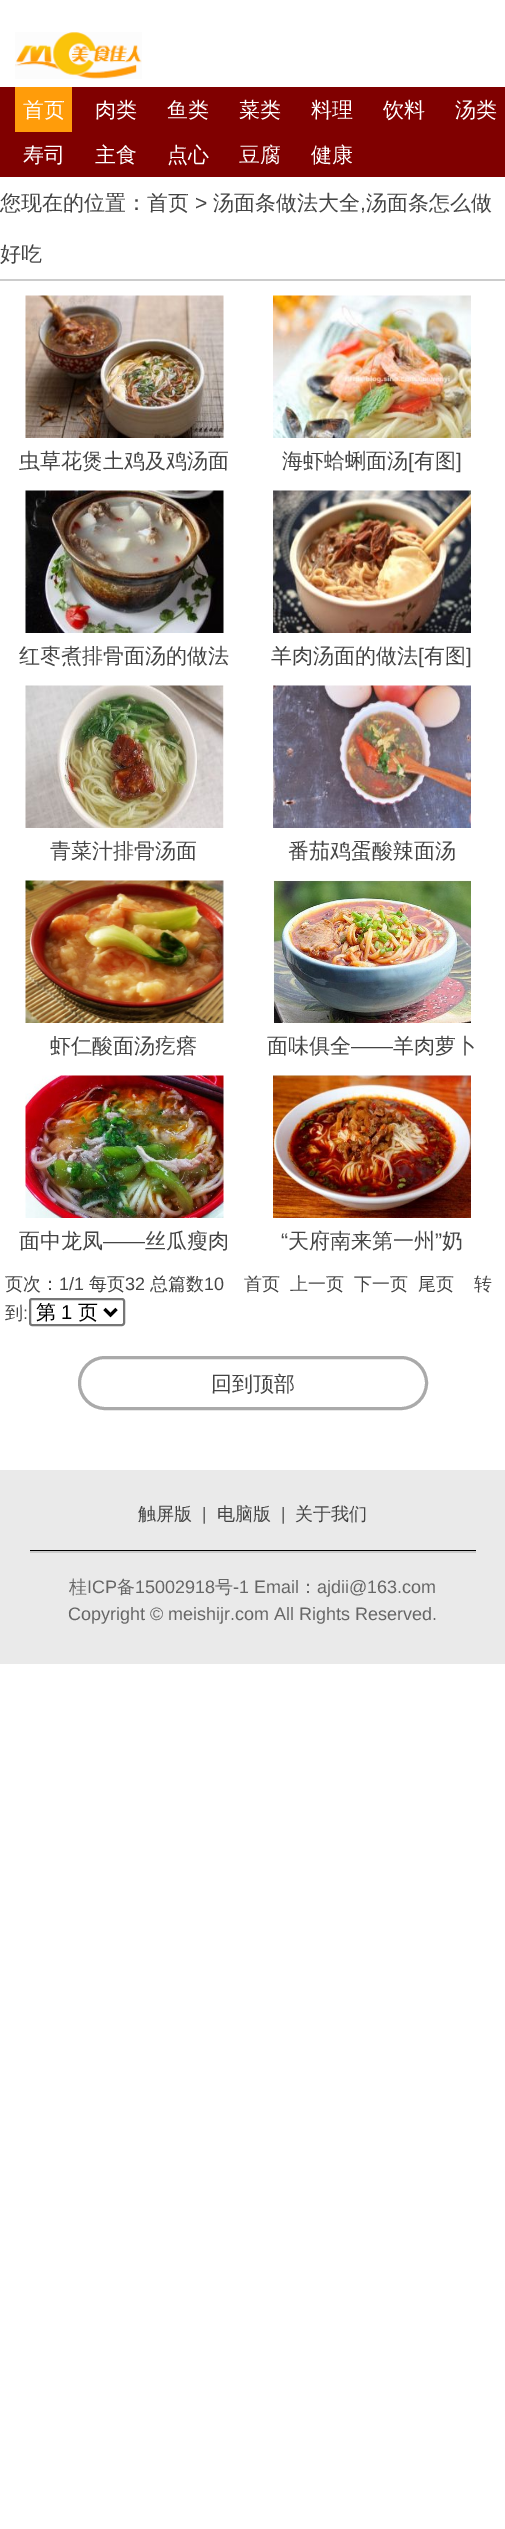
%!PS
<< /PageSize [505 2529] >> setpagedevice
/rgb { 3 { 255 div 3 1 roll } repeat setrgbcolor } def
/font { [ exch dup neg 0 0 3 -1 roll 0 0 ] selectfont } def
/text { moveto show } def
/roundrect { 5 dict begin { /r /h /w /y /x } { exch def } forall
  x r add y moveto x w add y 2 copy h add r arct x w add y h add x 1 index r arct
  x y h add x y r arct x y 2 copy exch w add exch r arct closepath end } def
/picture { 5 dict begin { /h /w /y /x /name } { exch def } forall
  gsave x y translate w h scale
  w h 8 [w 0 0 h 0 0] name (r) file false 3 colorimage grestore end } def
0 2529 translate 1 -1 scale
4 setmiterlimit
255 255 255 rgb
0 0 505 2529 rectfill
(img_01.rgb) 15 32 127 47 picture
128 0 0 rgb
0 87 505 90 rectfill
255 156 10 rgb
15 87 57 45 rectfill
204 204 204 rgb
0 279 505 2 rectfill
(img_02.rgb) 25 295 199 143 picture
(img_03.rgb) 273 295 198 143 picture
(img_04.rgb) 25 490 199 143 picture
(img_05.rgb) 273 490 198 143 picture
(img_06.rgb) 25 685 199 143 picture
(img_07.rgb) 273 685 198 143 picture
(img_08.rgb) 25 880 199 143 picture
(img_09.rgb) 273 880 198 143 picture
(img_10.rgb) 25 1075 199 143 picture
(img_11.rgb) 273 1075 198 143 picture
118 118 118 rgb
2 setlinewidth
30 1299 94 26 2 roundrect stroke
0 0 0 rgb
3 setlinewidth
104.5 1309 moveto 6 6 rlineto 6 -6 rlineto stroke
170 170 170 rgb
79.5 1357.5 347 51 25.5 roundrect stroke
234 234 234 rgb
0 1470 505 194 rectfill
0 0 0 rgb
30 1550 446 1 rectfill
204 204 204 rgb
30 1551 446 2 rectfill
/WenQuanYiZenHei-Medium 21 font
255 255 255 rgb
(首页) 23 117 text
(肉类) 95 117 text
(鱼类) 167 117 text
(菜类) 239 117 text
(料理) 311 117 text
(饮料) 383 117 text
(汤类) 455 117 text
(寿司) 23 162 text
(主食) 95 162 text
(点心) 167 162 text
(豆腐) 239 162 text
(健康) 311 162 text
68 68 68 rgb
(您现在的位置：首页) 0 210 text
/LiberationSans-Regular 21 font
(>) 195 210 text
/WenQuanYiZenHei-Medium 21 font
(汤面条做法大全) 213 210 text
(汤面条怎么做) 366 210 text
/LiberationSans-Regular 21 font
(,) 360 210 text
/WenQuanYiZenHei-Medium 21 font
(好吃) 0 261 text
(虫草花煲土鸡及鸡汤面) 19 468 text
(海虾蛤蜊面汤) 282 468 text
/LiberationSans-Regular 21 font
([) 408 468 text
/WenQuanYiZenHei-Medium 21 font
(有图) 414 468 text
/LiberationSans-Regular 21 font
(]) 456 468 text
/WenQuanYiZenHei-Medium 21 font
(红枣煮排骨面汤的做法) 19 663 text
(羊肉汤面的做法) 271 663 text
/LiberationSans-Regular 21 font
([) 418 663 text
/WenQuanYiZenHei-Medium 21 font
(有图) 424 663 text
/LiberationSans-Regular 21 font
(]) 466 663 text
/WenQuanYiZenHei-Medium 21 font
(青菜汁排骨汤面) 50 858 text
(番茄鸡蛋酸辣面汤) 288 858 text
(虾仁酸面汤疙瘩) 50 1053 text
(面味俱全) 267 1053 text
/LiberationSans-Regular 21 font
(——) 351 1053 text
/WenQuanYiZenHei-Medium 21 font
(羊肉萝卜) 393 1053 text
(面中龙凤) 19 1248 text
/LiberationSans-Regular 21 font
(——) 103 1248 text
/WenQuanYiZenHei-Medium 21 font
(丝瓜瘦肉) 145 1248 text
/LiberationSans-Regular 21 font
(“) 281 1248 text
/WenQuanYiZenHei-Medium 21 font
(天府南来第一州) 288 1248 text
/LiberationSans-Regular 21 font
(”) 435 1248 text
/WenQuanYiZenHei-Medium 21 font
(奶) 442 1248 text
/WenQuanYiZenHei-Medium 18 font
(页次：) 5 1290 text
/LiberationSans-Regular 18 font
(1/1) 59 1290 text
/WenQuanYiZenHei-Medium 18 font
(每页) 89 1290 text
/LiberationSans-Regular 18 font
(32) 125 1290 text
/WenQuanYiZenHei-Medium 18 font
(总篇数) 150 1290 text
/LiberationSans-Regular 18 font
(10) 204 1290 text
/WenQuanYiZenHei-Medium 18 font
(首页) 244 1290 text
(上一页) 290 1290 text
(下一页) 354 1290 text
(尾页) 418 1290 text
(转) 474 1290 text
(到) 5 1319 text
/LiberationSans-Regular 18 font
(:) 23 1319 text
/WenQuanYiZenHei-Medium 20 font
0 0 0 rgb
(第) 36 1319 text
/LiberationSans-Regular 20 font
(1) 61 1319 text
/WenQuanYiZenHei-Medium 20 font
(页) 78 1319 text
/WenQuanYiZenHei-Medium 21 font
68 68 68 rgb
(回到顶部) 211 1391 text
/WenQuanYiZenHei-Medium 18 font
(触屏版) 138 1520 text
/LiberationSans-Regular 18 font
102 102 102 rgb
(|) 202 1520 text
/WenQuanYiZenHei-Medium 18 font
68 68 68 rgb
(电脑版) 217 1520 text
/LiberationSans-Regular 18 font
102 102 102 rgb
(|) 281 1520 text
/WenQuanYiZenHei-Medium 18 font
68 68 68 rgb
(关于我们) 295 1520 text
102 102 102 rgb
(桂) 69 1593 text
/LiberationSans-Regular 18 font
(ICP) 87 1593 text
/WenQuanYiZenHei-Medium 18 font
(备) 117 1593 text
/LiberationSans-Regular 18 font
(15002918) 135 1593 text
/WenQuanYiZenHei-Medium 18 font
(号) 215 1593 text
/LiberationSans-Regular 18 font
(-1 Email) 233 1593 text
/WenQuanYiZenHei-Medium 18 font
(：) 299 1593 text
/LiberationSans-Regular 18 font
(ajdii@163.com) 317 1593 text
(Copyright © meishijr.com All Rights Reserved.) 68 1620 text
showpage
